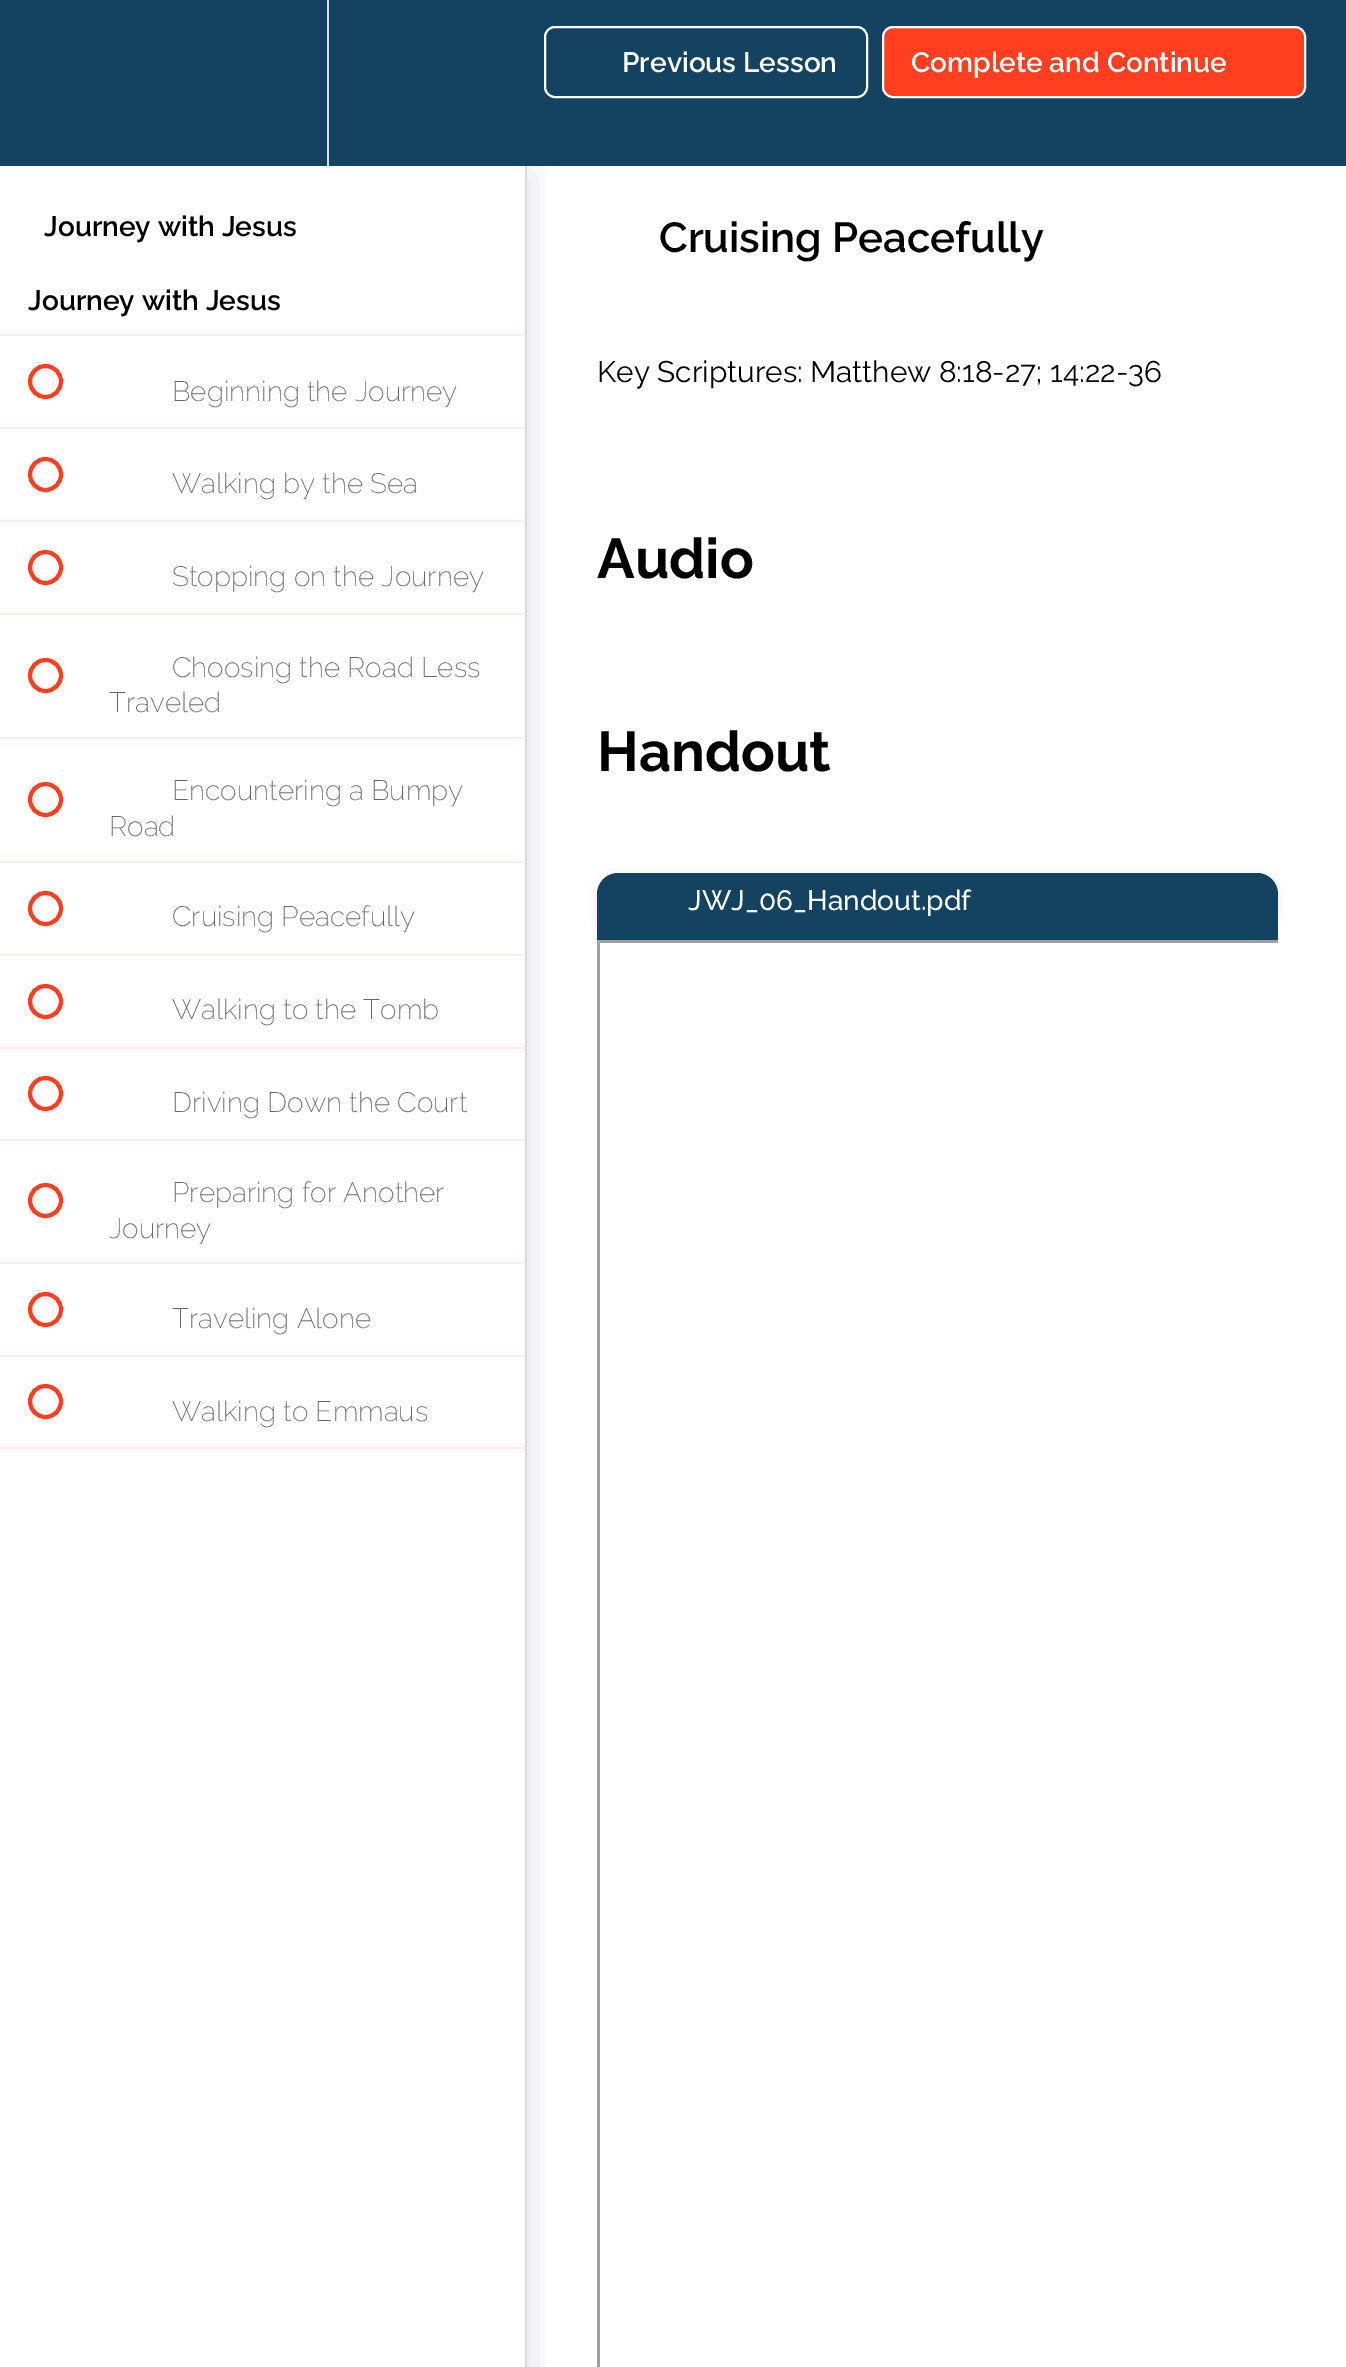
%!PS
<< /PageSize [1346 2367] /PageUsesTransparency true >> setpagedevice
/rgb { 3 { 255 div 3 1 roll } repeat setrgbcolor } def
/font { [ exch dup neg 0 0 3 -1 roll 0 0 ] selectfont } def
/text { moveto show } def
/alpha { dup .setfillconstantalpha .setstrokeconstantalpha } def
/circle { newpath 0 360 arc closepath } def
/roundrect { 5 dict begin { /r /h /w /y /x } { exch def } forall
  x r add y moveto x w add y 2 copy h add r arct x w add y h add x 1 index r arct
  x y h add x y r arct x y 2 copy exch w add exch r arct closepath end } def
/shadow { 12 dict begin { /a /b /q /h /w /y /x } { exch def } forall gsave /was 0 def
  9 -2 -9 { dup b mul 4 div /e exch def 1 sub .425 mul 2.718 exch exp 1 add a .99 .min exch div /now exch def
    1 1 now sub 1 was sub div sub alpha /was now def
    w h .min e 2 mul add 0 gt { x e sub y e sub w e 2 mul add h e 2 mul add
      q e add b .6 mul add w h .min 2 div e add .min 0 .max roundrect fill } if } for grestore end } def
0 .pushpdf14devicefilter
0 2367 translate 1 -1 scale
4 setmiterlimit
255 255 255 rgb
0 0 1346 2367 rectfill
gsave
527 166 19 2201 rectclip
32 39 45 rgb
0 177 527 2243 0 17.5 0.15 shadow
grestore
19 67 97 rgb
0 0 1346 166 rectfill
215 218 219 rgb
327 0 2 166 rectfill
255 255 255 rgb
2 setlinewidth
545 27 322 70 10 roundrect stroke
255 63 32 rgb
883 27 422 70 10 roundrect gsave fill grestore
255 255 255 rgb
stroke
215 218 219 rgb
525 166 2 2201 rectfill
255 236 233 rgb
0 334 525 2 rectfill
0 427 525 2 rectfill
255 63 32 rgb
4 setlinewidth
45.5 381.5 15.5 circle stroke
255 236 233 rgb
0 520 525 2 rectfill
255 63 32 rgb
45.5 474.5 15.5 circle stroke
255 236 233 rgb
0 613 525 2 rectfill
255 63 32 rgb
45.5 567.5 15.5 circle stroke
255 236 233 rgb
0 737 525 2 rectfill
255 63 32 rgb
45.5 675.5 15.5 circle stroke
255 236 233 rgb
0 861 525 2 rectfill
255 63 32 rgb
45.5 799.5 15.5 circle stroke
255 236 233 rgb
0 954 525 2 rectfill
255 63 32 rgb
45.5 908.5 15.5 circle stroke
255 236 233 rgb
0 1047 525 2 rectfill
255 63 32 rgb
45.5 1001.5 15.5 circle stroke
255 236 233 rgb
0 1139 525 2 rectfill
255 63 32 rgb
45.5 1093.5 15.5 circle stroke
255 236 233 rgb
0 1262 525 2 rectfill
255 63 32 rgb
45.5 1200.5 15.5 circle stroke
255 236 233 rgb
0 1355 525 2 rectfill
255 63 32 rgb
45.5 1309.5 15.5 circle stroke
255 236 233 rgb
0 1447 525 2 rectfill
255 63 32 rgb
45.5 1401.5 15.5 circle stroke
0 0 0 rgb
597 877 681 56 21 5 0.1 shadow
19 67 97 rgb
618 873 moveto 639 0 rlineto 11.5 0 21 9.5 21 21 rcurveto 0 35 rlineto -681 0 rlineto 0 -35 rlineto 0 -11.5 9.5 -21 21 -21 rcurveto closepath fill
597 929 681 11 rectfill
159 159 159 rgb
597 940 moveto 681 0 rlineto 0 3 rlineto -678 0 rlineto closepath fill
597 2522 moveto 0 -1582 rlineto 3 3 rlineto 0 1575 rlineto closepath fill
/Raleway-SemiBold 28 font
255 255 255 rgb
(Previous Lesson) 622 72 text
(Complete and Continue) 911 72 text
0 0 0 rgb
(Journey with Jesus) 44 236 text
(Journey with Jesus) 28 310 text
/Raleway-ExtraLight 28 font
103 103 103 rgb
(Beginning the Journey) 172 401 text
(Walking by the Sea) 172 493 text
(Stopping on the Journey) 172 586 text
(Choosing the Road Less) 172 677 text
(Traveled) 109 712 text
(Encountering a Bumpy) 172 800 text
(Road) 109 836 text
(Cruising Peacefully) 172 926 text
(Walking to the Tomb) 172 1019 text
(Driving Down the Court) 172 1112 text
(Preparing for Another) 172 1202 text
(Journey) 109 1238 text
(Traveling Alone) 172 1328 text
(Walking to Emmaus) 172 1421 text
/Raleway-SemiBold 42 font
0 0 0 rgb
(Cruising Peacefully) 659 252 text
/Raleway-Regular 29.75 font
(Key Scriptures: Matthew 8:18-27; 14:22-36) 597 382 text
/Raleway-Bold 56 font
(Audio) 597 578 text
(Handout) 597 771 text
/Raleway-Medium 28 font
255 255 255 rgb
(JWJ_06_Handout.pdf) 688 910 text
.poppdf14devicefilter showpage
